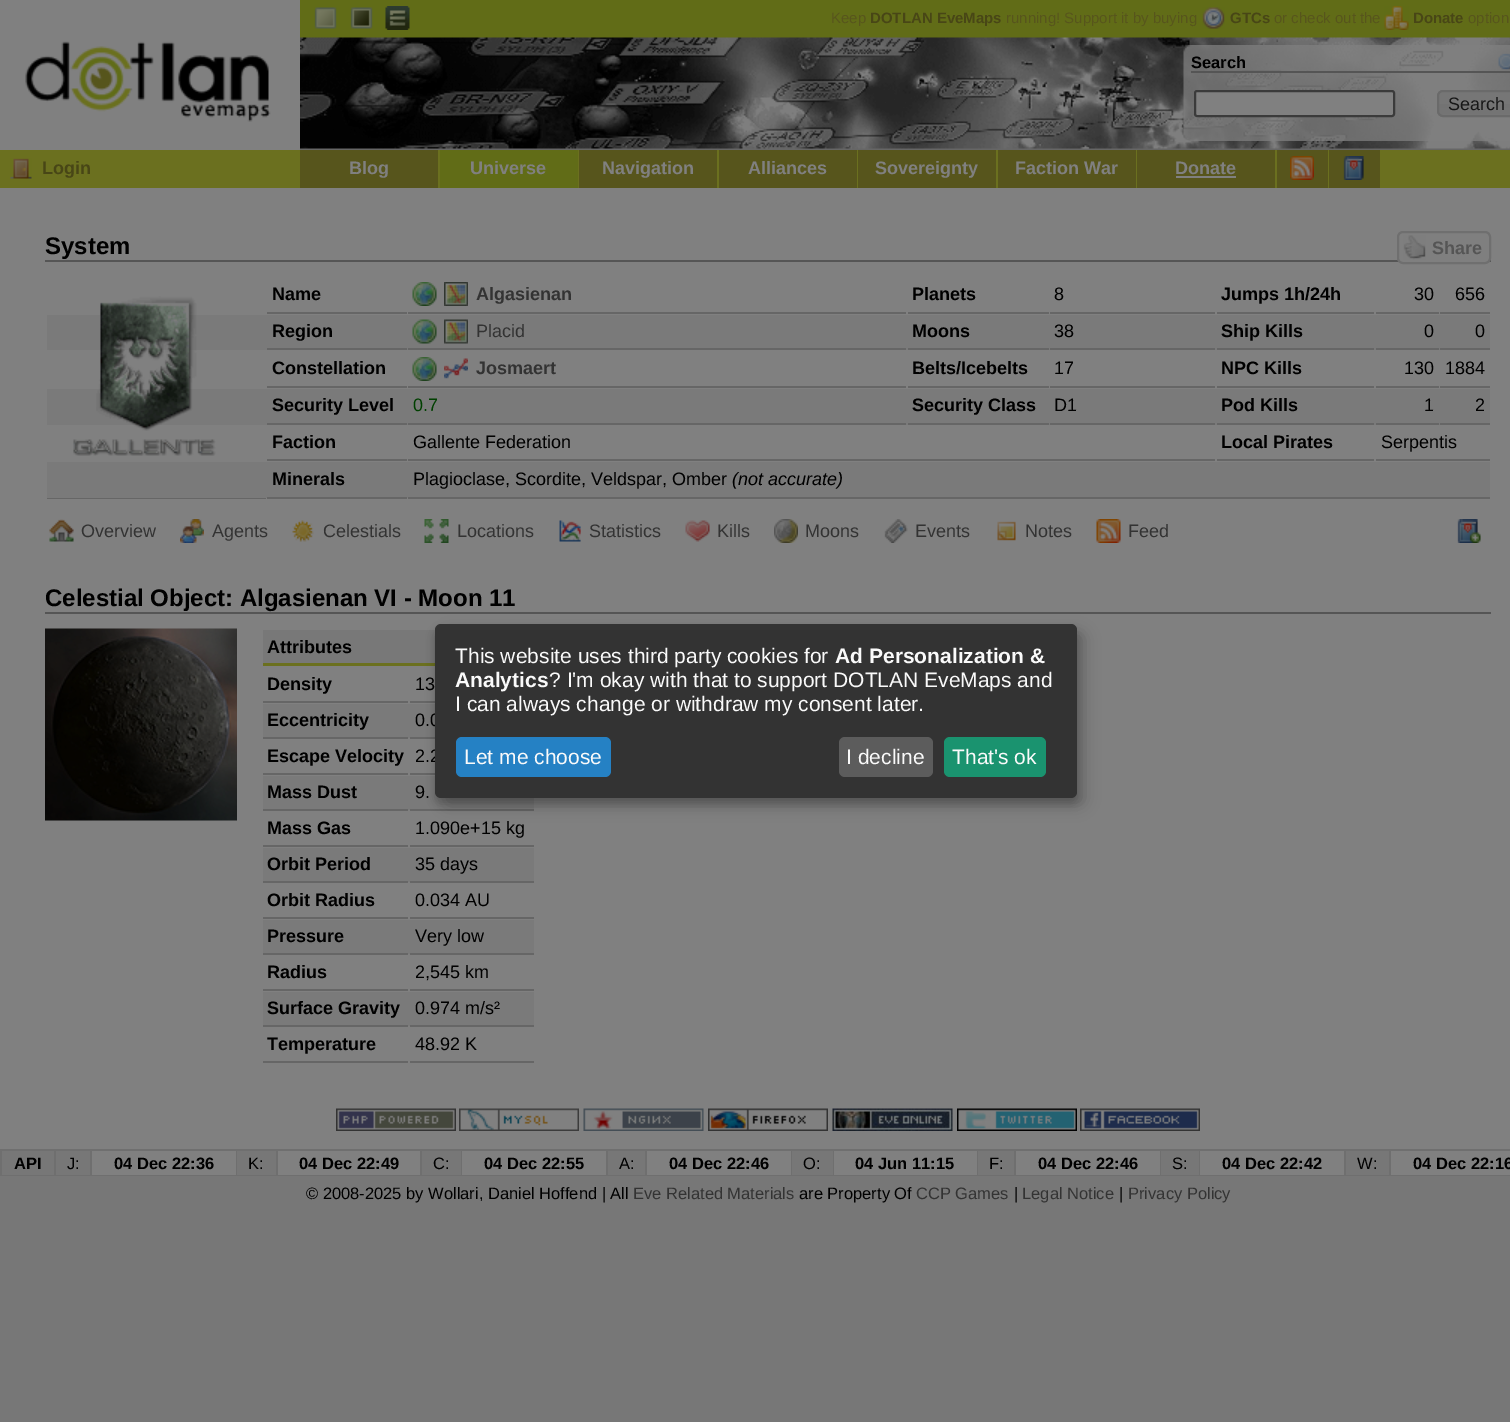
%!PS
<< /PageSize [1510 1422] /PageUsesTransparency true >> setpagedevice
/rgb { 3 { 255 div 3 1 roll } repeat setrgbcolor } def
/font { [ exch dup neg 0 0 3 -1 roll 0 0 ] selectfont } def
/text { moveto show } def
/alpha { dup .setfillconstantalpha .setstrokeconstantalpha } def
/roundrect { 5 dict begin { /r /h /w /y /x } { exch def } forall
  x r add y moveto x w add y 2 copy h add r arct x w add y h add x 1 index r arct
  x y h add x y r arct x y 2 copy exch w add exch r arct closepath end } def
/shadow { 12 dict begin { /a /b /q /h /w /y /x } { exch def } forall gsave /was 0 def
  9 -2 -9 { dup b mul 4 div /e exch def 1 sub .425 mul 2.718 exch exp 1 add a .99 .min exch div /now exch def
    1 1 now sub 1 was sub div sub alpha /was now def
    w h .min e 2 mul add 0 gt { x e sub y e sub w e 2 mul add h e 2 mul add
      q e add b .6 mul add w h .min 2 div e add .min 0 .max roundrect fill } if } for grestore end } def
/picture { 5 dict begin { /h /w /y /x /name } { exch def } forall
  gsave x y translate w h scale
  w h 8 [w 0 0 h 0 0] name (r) file false 3 colorimage grestore end } def
0 .pushpdf14devicefilter
0 1422 translate 1 -1 scale
4 setmiterlimit
119 119 119 rgb
0 0 1510 1422 rectfill
128 128 128 rgb
0 188 1510 961 rectfill
0 0 300 150 rectfill
(img_01.rgb) 25 41 246 81 picture
97 108 23 rgb
300 0 1210 38 rectfill
(img_02.rgb) 314 7 23 22 picture
(img_03.rgb) 350 7 23 22 picture
(img_04.rgb) 385 6 25 24 picture
(img_05.rgb) 1202 7 23 22 picture
(img_06.rgb) 1384 6 25 24 picture
102 102 102 rgb
300 148 1210 2 rectfill
(img_07.rgb) 300 37 1210 112 picture
(img_08.rgb) 1183 45 327 96 picture
85 85 85 rgb
1191 71 319 2 rectfill
(img_09.rgb) 1498 53 12 17 picture
128 128 128 rgb
1195 91 199 25 2 roundrect gsave fill grestore
59 59 59 rgb
2 setlinewidth
stroke
(img_10.rgb) 1437 90 73 27 picture
106 106 106 rgb
1438 91 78 25 5 roundrect stroke
107 112 31 rgb
0 150 1510 38 rectfill
(img_11.rgb) 10 158 22 21 picture
87 85 28 rgb
300 150 138 38 rectfill
97 108 23 rgb
440 150 138 38 rectfill
87 85 28 rgb
579 150 138 38 rectfill
719 150 138 38 rectfill
858 150 138 38 rectfill
998 150 138 38 rectfill
1137 150 138 38 rectfill
128 128 128 rgb
1176 176 60 2 rectfill
87 85 28 rgb
1277 150 51 38 rectfill
(img_12.rgb) 1290 156 24 24 picture
1329 150 51 38 rectfill
(img_13.rgb) 1343 156 21 24 picture
85 85 85 rgb
45 260 1446 2 rectfill
127 127 127 rgb
1398 232 92 31 5 roundrect gsave fill grestore
111 111 111 rgb
stroke
(img_14.rgb) 1403 235 23 25 picture
102 102 102 rgb
267 312 140 2 rectfill
408 312 498 2 rectfill
(img_15.rgb) 412 282 25 24 picture
(img_16.rgb) 444 282 24 24 picture
908 312 141 2 rectfill
1050 312 165 2 rectfill
1217 312 157 2 rectfill
1376 312 63 2 rectfill
1440 312 50 2 rectfill
47 498 219 1 rectfill
122 122 122 rgb
47 315 1443 35 rectfill
47 389 1443 36 rectfill
(img_17.rgb) 73 296 143 160 picture
102 102 102 rgb
267 348 140 2 rectfill
408 348 498 2 rectfill
(img_18.rgb) 412 319 25 25 picture
(img_19.rgb) 444 319 24 25 picture
908 348 141 2 rectfill
1050 348 165 2 rectfill
1217 348 157 2 rectfill
1376 348 63 2 rectfill
1440 348 50 2 rectfill
267 386 140 2 rectfill
408 386 498 2 rectfill
(img_15.rgb) 412 357 25 24 picture
(img_20.rgb) 444 358 24 21 picture
908 386 141 2 rectfill
1050 386 165 2 rectfill
1217 386 157 2 rectfill
1376 386 63 2 rectfill
1440 386 50 2 rectfill
267 423 140 2 rectfill
408 423 498 2 rectfill
908 423 141 2 rectfill
1050 423 165 2 rectfill
1217 423 157 2 rectfill
1376 423 63 2 rectfill
1440 423 50 2 rectfill
267 459 140 2 rectfill
408 459 807 2 rectfill
1217 459 157 2 rectfill
1376 459 114 2 rectfill
122 122 122 rgb
47 462 1443 36 rectfill
102 102 102 rgb
267 497 140 2 rectfill
408 497 1082 2 rectfill
(img_21.rgb) 49 519 25 23 picture
(img_22.rgb) 180 519 24 24 picture
(img_23.rgb) 292 520 22 22 picture
(img_24.rgb) 424 519 25 24 picture
(img_25.rgb) 559 520 22 22 picture
(img_26.rgb) 685 520 25 22 picture
(img_27.rgb) 774 519 24 24 picture
(img_28.rgb) 884 519 24 24 picture
(img_29.rgb) 997 521 19 20 picture
(img_30.rgb) 1096 519 25 24 picture
(img_31.rgb) 1457 519 24 24 picture
85 85 85 rgb
45 612 1446 2 rectfill
(img_32.rgb) 45 628 192 193 picture
120 120 120 rgb
263 630 172 33 rectfill
107 112 31 rgb
263 663 172 3 rectfill
102 102 102 rgb
263 701 145 2 rectfill
410 701 25 2 rectfill
122 122 122 rgb
263 704 172 34 rectfill
102 102 102 rgb
263 737 145 2 rectfill
410 737 25 2 rectfill
263 773 145 2 rectfill
410 773 25 2 rectfill
122 122 122 rgb
263 776 271 34 rectfill
102 102 102 rgb
263 809 145 2 rectfill
410 809 124 2 rectfill
263 845 145 2 rectfill
410 845 124 2 rectfill
122 122 122 rgb
263 848 271 34 rectfill
102 102 102 rgb
263 881 145 2 rectfill
410 881 124 2 rectfill
263 917 145 2 rectfill
410 917 124 2 rectfill
122 122 122 rgb
263 920 271 34 rectfill
102 102 102 rgb
263 953 145 2 rectfill
410 953 124 2 rectfill
263 989 145 2 rectfill
410 989 124 2 rectfill
122 122 122 rgb
263 992 271 34 rectfill
102 102 102 rgb
263 1025 145 2 rectfill
410 1025 124 2 rectfill
263 1061 145 2 rectfill
410 1061 124 2 rectfill
(img_33.rgb) 336 1108 120 23 picture
(img_34.rgb) 459 1108 120 23 picture
(img_35.rgb) 583 1108 121 23 picture
(img_36.rgb) 708 1108 120 23 picture
(img_37.rgb) 832 1108 121 23 picture
(img_38.rgb) 957 1108 120 23 picture
(img_39.rgb) 1080 1108 120 23 picture
111 111 111 rgb
0 1149 1510 27 rectfill
119 119 119 rgb
2 1151 52 24 rectfill
56 1151 34 24 rectfill
128 128 128 rgb
92 1151 144 24 rectfill
119 119 119 rgb
237 1151 39 24 rectfill
128 128 128 rgb
278 1151 142 24 rectfill
119 119 119 rgb
422 1151 39 24 rectfill
128 128 128 rgb
462 1151 144 24 rectfill
119 119 119 rgb
608 1151 37 24 rectfill
128 128 128 rgb
647 1151 144 24 rectfill
119 119 119 rgb
792 1151 41 24 rectfill
128 128 128 rgb
834 1151 143 24 rectfill
119 119 119 rgb
978 1151 36 24 rectfill
128 128 128 rgb
1016 1151 144 24 rectfill
119 119 119 rgb
1161 1151 38 24 rectfill
128 128 128 rgb
1200 1151 144 24 rectfill
119 119 119 rgb
1346 1151 43 24 rectfill
128 128 128 rgb
1391 1151 119 24 rectfill
0 0 0 rgb
443 632 642 174 6 7.5 0.19 shadow
435 630 642 174 6 4.5 0.2 shadow
/LiberationSans-Regular 15 font
87 85 28 rgb
(Keep) 831 23 text
/LiberationSans-Bold 15 font
72 70 22 rgb
(DOTLAN EveMaps) 870 23 text
/LiberationSans-Regular 15 font
87 85 28 rgb
(running! Support it by buying) 1006 23 text
/LiberationSans-Bold 15 font
72 70 22 rgb
(GTCs) 1230 23 text
/LiberationSans-Regular 15 font
87 85 28 rgb
(or check out the) 1274 23 text
/LiberationSans-Bold 15 font
72 70 22 rgb
(Donate) 1413 23 text
/LiberationSans-Regular 15 font
87 85 28 rgb
(option) 1468 23 text
/LiberationSans-Bold 16.5 font
0 0 0 rgb
(Search) 1191 68 text
/LiberationSans-Regular 18 font
24 24 24 rgb
(Search) 1448 110 text
/LiberationSans-Bold 18 font
72 70 22 rgb
(Login) 42 174 text
128 128 128 rgb
(Blog) 349 174 text
(Universe) 470 174 text
(Navigation) 602 174 text
(Alliances) 748 174 text
(Sovereignty) 875 174 text
(Faction War) 1015 174 text
(Donate) 1175 174 text
/LiberationSans-Bold 24 font
0 0 0 rgb
(System) 45 254 text
/LiberationSans-Bold 18 font
85 85 85 rgb
(Share) 1432 254 text
0 0 0 rgb
(Name) 272 300 text
51 51 51 rgb
(Algasienan) 476 300 text
0 0 0 rgb
(Planets) 912 300 text
/LiberationSans-Regular 18 font
(8) 1054 300 text
/LiberationSans-Bold 18 font
(Jumps 1h/24h) 1221 300 text
/LiberationSans-Regular 18 font
(30) 1414 300 text
(656) 1455 300 text
/LiberationSans-Bold 18 font
(Region) 272 337 text
/LiberationSans-Regular 18 font
51 51 51 rgb
(Placid) 476 337 text
/LiberationSans-Bold 18 font
0 0 0 rgb
(Moons) 912 337 text
/LiberationSans-Regular 18 font
(38) 1054 337 text
/LiberationSans-Bold 18 font
(Ship Kills) 1221 337 text
/LiberationSans-Regular 18 font
(0) 1424 337 text
(0) 1475 337 text
/LiberationSans-Bold 18 font
(Constellation) 272 374 text
51 51 51 rgb
(Josmaert) 476 374 text
0 0 0 rgb
(Belts/Icebelts) 912 374 text
/LiberationSans-Regular 18 font
(17) 1054 374 text
/LiberationSans-Bold 18 font
(NPC Kills) 1221 374 text
/LiberationSans-Regular 18 font
(130) 1404 374 text
(1884) 1445 374 text
/LiberationSans-Bold 18 font
(Security Level) 272 411 text
/LiberationSans-Regular 18 font
0 64 0 rgb
(0.7) 413 411 text
/LiberationSans-Bold 18 font
0 0 0 rgb
(Security Class) 912 411 text
/LiberationSans-Regular 18 font
(D1) 1054 411 text
/LiberationSans-Bold 18 font
(Pod Kills) 1221 411 text
/LiberationSans-Regular 18 font
(1) 1424 411 text
(2) 1475 411 text
/LiberationSans-Bold 18 font
(Faction) 272 448 text
/LiberationSans-Regular 18 font
(Gallente Federation) 413 448 text
/LiberationSans-Bold 18 font
(Local Pirates) 1221 448 text
/LiberationSans-Regular 18 font
(Serpentis) 1381 448 text
/LiberationSans-Bold 18 font
(Minerals) 272 485 text
/LiberationSans-Regular 18 font
(Plagioclase, Scordite, Veldspar, Omber) 413 485 text
/LiberationSans-Italic 18 font
(\(not accurate\)) 732 485 text
/LiberationSans-Regular 18 font
51 51 51 rgb
(Overview) 81 537 text
(Agents) 212 537 text
(Celestials) 323 537 text
(Locations) 457 537 text
(Statistics) 589 537 text
(Kills) 717 537 text
(Moons) 805 537 text
(Events) 915 537 text
(Notes) 1025 537 text
(Feed) 1128 537 text
/LiberationSans-Bold 24 font
0 0 0 rgb
(Celestial Object: Algasienan VI - Moon 11) 45 606 text
/LiberationSans-Bold 18 font
(Attributes) 267 653 text
(Density) 267 690 text
/LiberationSans-Regular 18 font
(13) 415 690 text
/LiberationSans-Bold 18 font
(Eccentricity) 267 726 text
/LiberationSans-Regular 18 font
(0.0) 415 726 text
/LiberationSans-Bold 18 font
(Escape Velocity) 267 762 text
/LiberationSans-Regular 18 font
(2.2) 415 762 text
/LiberationSans-Bold 18 font
(Mass Dust) 267 798 text
/LiberationSans-Regular 18 font
(9.) 415 798 text
/LiberationSans-Bold 18 font
(Mass Gas) 267 834 text
/LiberationSans-Regular 18 font
(1.090e+15 kg) 415 834 text
/LiberationSans-Bold 18 font
(Orbit Period) 267 870 text
/LiberationSans-Regular 18 font
(35 days) 415 870 text
/LiberationSans-Bold 18 font
(Orbit Radius) 267 906 text
/LiberationSans-Regular 18 font
(0.034 AU) 415 906 text
/LiberationSans-Bold 18 font
(Pressure) 267 942 text
/LiberationSans-Regular 18 font
(Very low) 415 942 text
/LiberationSans-Bold 18 font
(Radius) 267 978 text
/LiberationSans-Regular 18 font
(2,545 km) 415 978 text
/LiberationSans-Bold 18 font
(Surface Gravity) 267 1014 text
/LiberationSans-Regular 18 font
(0.974 m/s²) 415 1014 text
/LiberationSans-Bold 18 font
(Temperature) 267 1050 text
/LiberationSans-Regular 18 font
(48.92 K) 415 1050 text
/LiberationSans-Bold 16.5 font
(API) 14 1169 text
/LiberationSans-Regular 16.5 font
(J:) 67 1169 text
/LiberationSans-Bold 16.5 font
(04 Dec 22:36) 114 1169 text
/LiberationSans-Regular 16.5 font
(K:) 248 1169 text
/LiberationSans-Bold 16.5 font
(04 Dec 22:49) 299 1169 text
/LiberationSans-Regular 16.5 font
(C:) 433 1169 text
/LiberationSans-Bold 16.5 font
(04 Dec 22:55) 484 1169 text
/LiberationSans-Regular 16.5 font
(A:) 619 1169 text
/LiberationSans-Bold 16.5 font
(04 Dec 22:46) 669 1169 text
/LiberationSans-Regular 16.5 font
(O:) 803 1169 text
/LiberationSans-Bold 16.5 font
(04 Jun 11:15) 855 1169 text
/LiberationSans-Regular 16.5 font
(F:) 989 1169 text
/LiberationSans-Bold 16.5 font
(04 Dec 22:46) 1038 1169 text
/LiberationSans-Regular 16.5 font
(S:) 1172 1169 text
/LiberationSans-Bold 16.5 font
(04 Dec 22:42) 1222 1169 text
/LiberationSans-Regular 16.5 font
(W:) 1357 1169 text
/LiberationSans-Bold 16.5 font
(04 Dec 22:16) 1413 1169 text
/LiberationSans-Regular 16.5 font
(© 2008-2025 by Wollari, Daniel Hoffend | All) 306 1199 text
51 51 51 rgb
(Eve Related Materials) 633 1199 text
0 0 0 rgb
(are Property Of) 799 1199 text
51 51 51 rgb
(CCP Games) 916 1199 text
0 0 0 rgb
(|) 1014 1199 text
51 51 51 rgb
(Legal Notice) 1022 1199 text
0 0 0 rgb
(|) 1119 1199 text
51 51 51 rgb
(Privacy Policy) 1128 1199 text
435 624 642 174 6 roundrect fill
/LiberationSans-Regular 21 font
250 250 250 rgb
(This website uses third party cookies for) 455 663 text
/LiberationSans-Bold 21 font
(Ad Personalization &) 835 663 text
(Analytics) 455 687 text
/LiberationSans-Regular 21 font
(? I'm okay with that to support DOTLAN EveMaps and) 549 687 text
(I can always change or withdraw my consent later.) 455 711 text
37 129 196 rgb
456 737 155 40 6 roundrect fill
250 250 250 rgb
(Let me choose) 464 764 text
92 92 92 rgb
839 737 94 40 6 roundrect fill
250 250 250 rgb
(I decline) 846 764 text
26 147 111 rgb
944 737 102 40 6 roundrect fill
250 250 250 rgb
(That's ok) 952 764 text
.poppdf14devicefilter showpage
